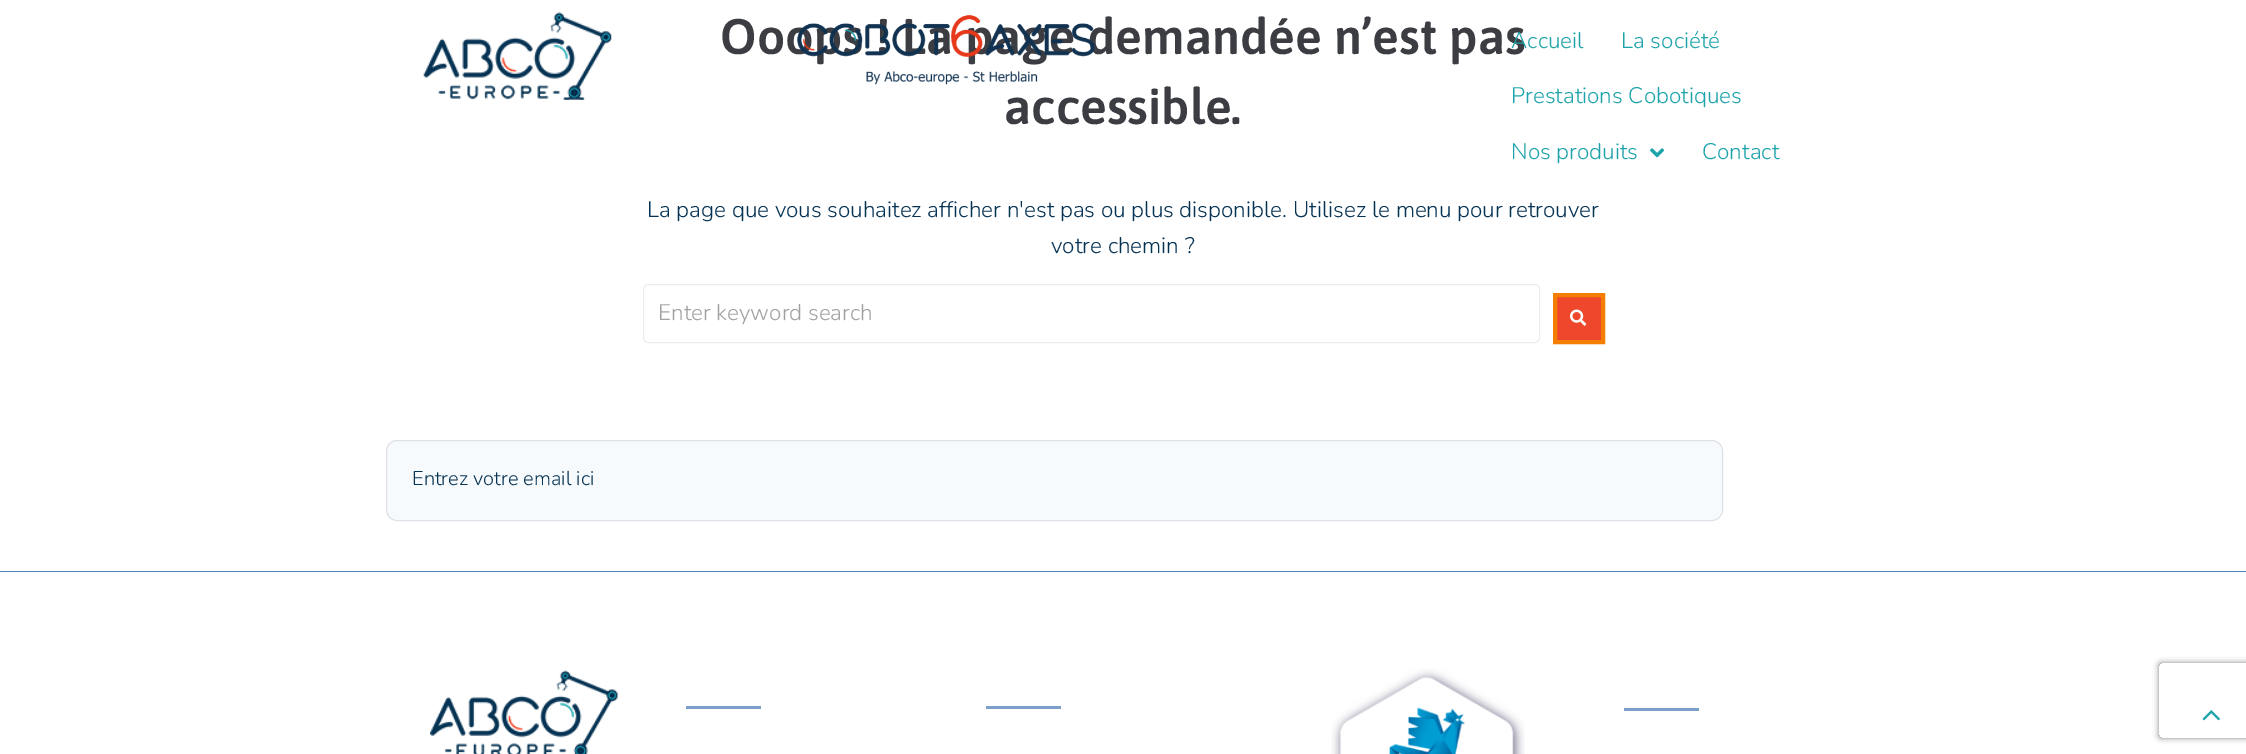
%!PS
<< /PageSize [2246 754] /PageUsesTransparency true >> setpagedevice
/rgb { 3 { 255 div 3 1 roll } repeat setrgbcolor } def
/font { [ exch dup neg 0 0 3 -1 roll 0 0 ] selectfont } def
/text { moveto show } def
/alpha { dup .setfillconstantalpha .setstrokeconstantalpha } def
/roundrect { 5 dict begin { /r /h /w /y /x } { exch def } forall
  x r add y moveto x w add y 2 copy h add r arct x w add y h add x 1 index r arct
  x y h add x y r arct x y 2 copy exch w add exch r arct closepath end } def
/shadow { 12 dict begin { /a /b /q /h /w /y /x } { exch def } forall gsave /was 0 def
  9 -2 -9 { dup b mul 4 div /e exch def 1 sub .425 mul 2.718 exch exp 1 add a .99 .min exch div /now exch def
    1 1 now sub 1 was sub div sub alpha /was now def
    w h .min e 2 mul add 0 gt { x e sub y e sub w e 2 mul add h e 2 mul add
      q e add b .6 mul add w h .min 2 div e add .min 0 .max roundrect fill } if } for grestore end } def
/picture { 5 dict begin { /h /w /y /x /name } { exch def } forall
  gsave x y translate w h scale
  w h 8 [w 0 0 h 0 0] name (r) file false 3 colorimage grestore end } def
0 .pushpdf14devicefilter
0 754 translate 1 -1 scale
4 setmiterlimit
255 255 255 rgb
0 0 2246 754 rectfill
235 236 237 rgb
643.5 284.5 896 58 4.5 roundrect stroke
239 71 43 rgb
1555 295 moveto 48 0 rlineto 0 47 rlineto -48 0 rlineto closepath gsave fill grestore
244 126 1 rgb
4 setlinewidth
stroke
(img_01.rgb) 1570 309 17 17 picture
(img_02.rgb) 423 12 189 88 picture
(img_04.rgb) 1650 148 15 10 picture
90 134 187 rgb
0 571 2246 1 rectfill
247 250 253 rgb
386.5 440.5 1336 80 10.5 roundrect gsave fill grestore
224 224 232 rgb
1 setlinewidth
stroke
(img_05.rgb) 430 670 188 84 picture
125 160 202 rgb
686 706 75 3 rectfill
986 706 75 3 rectfill
(img_06.rgb) 1331 669 194 85 picture
1624 708 75 3 rectfill
gsave
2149 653 moveto 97 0 rlineto 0 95 rlineto -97 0 rlineto closepath 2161.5 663 moveto 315 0 rlineto 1.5 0 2.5 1 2.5 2.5 rcurveto 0 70 rlineto 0 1.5 -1 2.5 -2.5 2.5 rcurveto -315 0 rlineto -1.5 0 -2.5 -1 -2.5 -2.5 rcurveto 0 -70 rlineto 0 -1.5 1 -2.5 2.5 -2.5 rcurveto closepath eoclip newpath
128 128 128 rgb
2159 663 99 75 2.5 3 1 shadow
grestore
(img_07.rgb) 2202 710 18 11 picture
/Asap-SemiBold 50 font
59 61 66 rgb
(Ooops ! La page demandée n’est pas) 720 54 text
(accessible.) 1004 124 text
/Nunito-Light 22.5 font
6 51 83 rgb
(La page que vous souhaitez afficher n'est pas ou plus disponible. Utilisez le menu pour retrouver) 647 217 text
(votre chemin ?) 1051 253 text
161 162 164 rgb
(Enter keyword search) 658 320 text
(img_03.rgb) 797 15 298 70 picture
31 163 170 rgb
(Accueil) 1511 48 text
(La société) 1621 48 text
(Prestations Cobotiques) 1511 103 text
(Nos produits) 1511 159 text
(Contact) 1702 159 text
/Nunito-Light 20 font
6 51 83 rgb
(Entrez votre email ici) 412 485 text
.poppdf14devicefilter showpage
